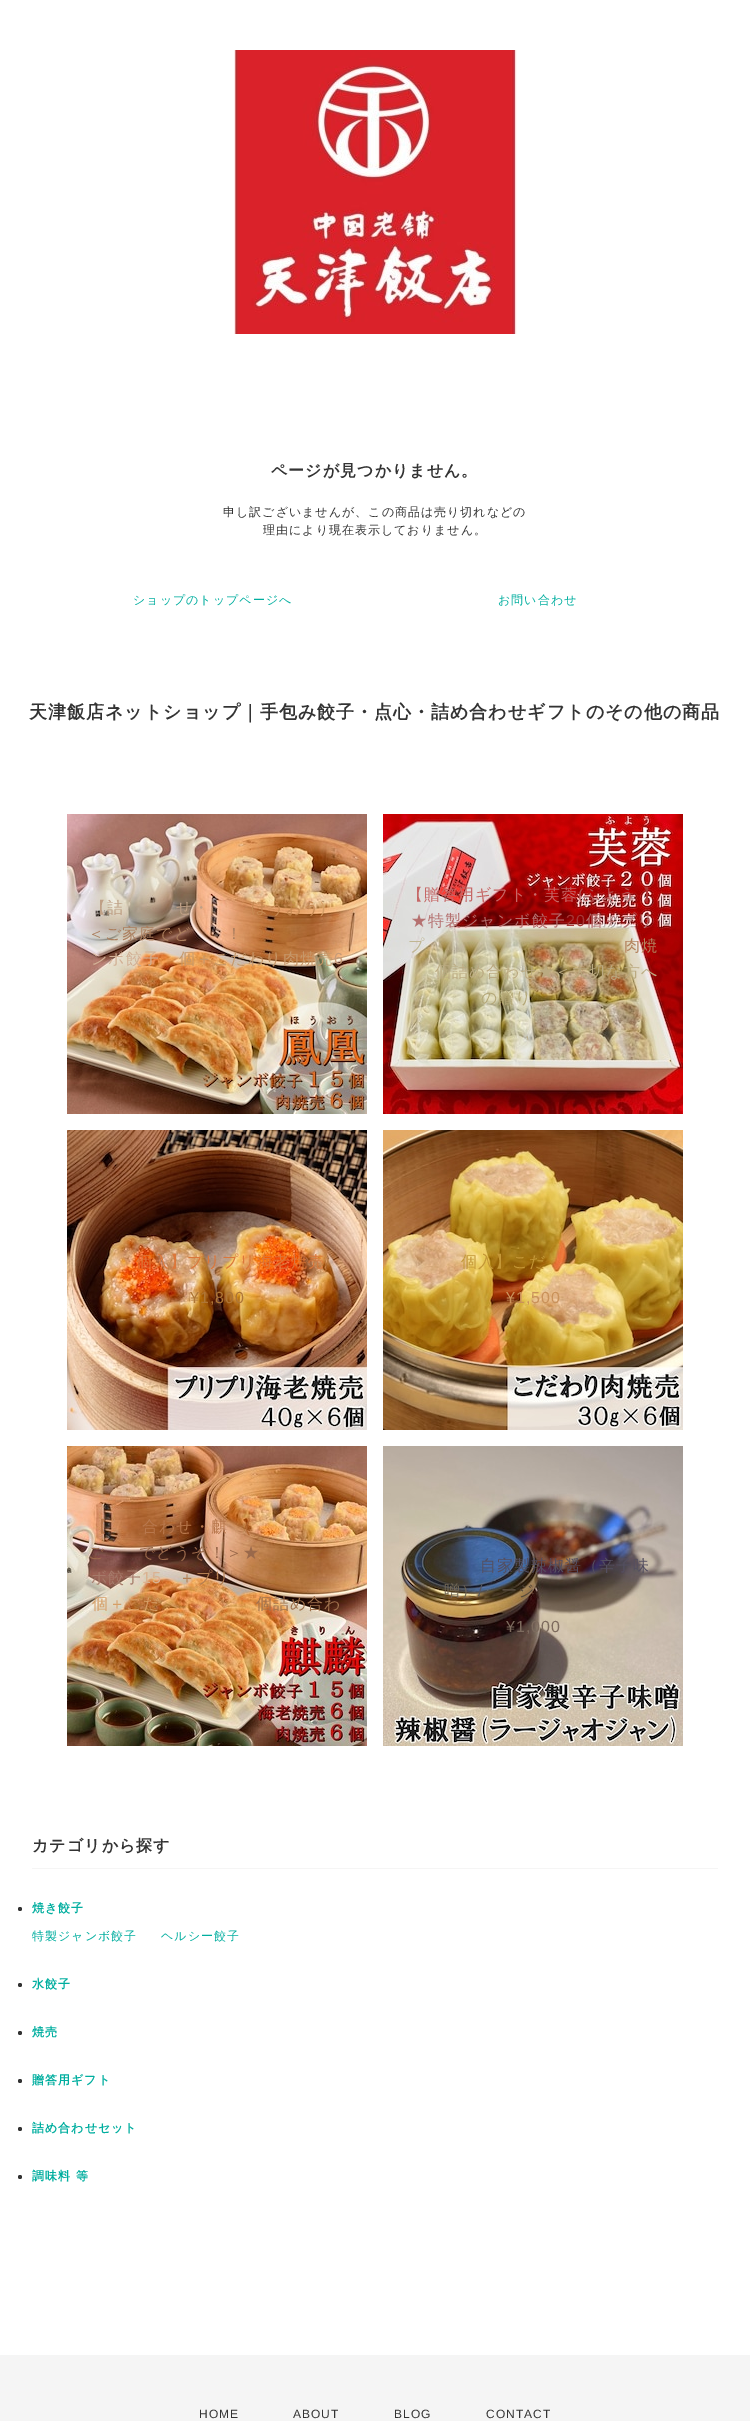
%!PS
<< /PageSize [750 2421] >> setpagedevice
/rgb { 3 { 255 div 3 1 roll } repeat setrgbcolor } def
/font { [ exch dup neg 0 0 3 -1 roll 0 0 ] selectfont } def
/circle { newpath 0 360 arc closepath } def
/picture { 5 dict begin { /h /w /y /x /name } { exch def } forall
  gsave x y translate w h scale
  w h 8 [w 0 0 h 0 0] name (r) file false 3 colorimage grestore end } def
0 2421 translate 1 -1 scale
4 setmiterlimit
255 255 255 rgb
0 0 750 2421 rectfill
(img_01.rgb) 234 50 283 284 picture
(img_02.rgb) 67 814 300 300 picture
(img_03.rgb) 383 814 300 300 picture
(img_04.rgb) 67 1130 300 300 picture
(img_05.rgb) 383 1130 300 300 picture
(img_06.rgb) 67 1446 300 300 picture
(img_07.rgb) 383 1446 300 300 picture
245 245 245 rgb
32 1868 686 1 rectfill
51 51 51 rgb
20 1909 2 circle fill
20 1985 2 circle fill
20 2033 2 circle fill
20 2081 2 circle fill
20 2129 2 circle fill
20 2177 2 circle fill
245 245 245 rgb
0 2355 750 66 rectfill
/WenQuanYiZenHei-Bold 16 font
51 51 51 rgb
271 476 moveto 1 0 (ページが見つかりません。) ashow
/WenQuanYiZenHei-Medium 12 font
223 516 moveto 1 0 (申し訳ございませんが、この商品は売り切れなどの) ashow
263 534 moveto 1 0 (理由により現在表示しておりません。) ashow
0 174 159 rgb
133 604 moveto 1 0 (ショップのトップページへ) ashow
498 604 moveto 1 0 (お問い合わせ) ashow
/WenQuanYiZenHei-Bold 18 font
51 51 51 rgb
29 718 moveto 1 0 (天津飯店ネットショップ｜手包み餃子・点心・詰め合わせギフトのその他の商品) ashow
/WenQuanYiZenHei-Medium 16 font
191 160 134 rgb
90 913 moveto 1 0 (【詰) ashow
176 913 moveto 1 0 (せ・) ashow
199 137 81 rgb
251 913 moveto 1 0 (ほうおう) ashow
/LiberationSans-Regular 16 font
214 159 103 rgb
320 913 moveto 1 0 (\)) ashow
/WenQuanYiZenHei-Medium 16 font
172 127 94 rgb
88 939 moveto 1 0 (＜ご家庭でど) ashow
226 939 moveto 1 0 (！) ashow
210 176 149 rgb
91 964 moveto 1 0 (ンボ餃子) ashow
198 151 105 rgb
179 964 moveto 1 0 (個＋こだわり肉焼売) ashow
/LiberationSans-Regular 16 font
199 155 120 rgb
334 964 moveto 1 0 (6) ashow
/WenQuanYiZenHei-Medium 16 font
198 104 103 rgb
407 900 moveto 1 0 (【贈答用ギフト・芙蓉) ashow
/LiberationSans-Regular 16 font
182 85 84 rgb
578 900 moveto 1 0 (\() ashow
/WenQuanYiZenHei-Medium 16 font
584 900 moveto 1 0 (ふよう) ashow
174 55 54 rgb
642 900 moveto 1 0 (】) ashow
181 113 112 rgb
411 926 moveto 1 0 (★特製ジャンボ餃子) ashow
/LiberationSans-Regular 16 font
166 54 53 rgb
566 926 moveto 1 0 (20) ashow
/WenQuanYiZenHei-Medium 16 font
181 113 112 rgb
586 926 moveto 1 0 (個＋プリ) ashow
192 182 146 rgb
408 951 moveto 1 0 (プ) ashow
180 131 94 rgb
624 951 moveto 1 0 (肉焼) ashow
187 170 129 rgb
435 977 moveto 1 0 (個詰め合わせ★＜大切な方へ) ashow
180 167 119 rgb
481 1003 moveto 1 0 (の贈り) ashow
/LiberationSans-Regular 16 font
185 173 140 rgb
525 1038 moveto 1 0 (,) ashow
/WenQuanYiZenHei-Medium 16 font
220 119 58 rgb
136 1267 moveto 1 0 (個入】プリプリ海老焼売) ashow
/LiberationSans-Regular 16 font
174 118 54 rgb
190 1303 moveto 1 0 (¥1,800) ashow
/WenQuanYiZenHei-Medium 16 font
196 151 55 rgb
461 1267 moveto 1 0 (個入】こだ) ashow
/LiberationSans-Regular 16 font
202 146 90 rgb
506 1303 moveto 1 0 (¥1,500) ashow
/WenQuanYiZenHei-Medium 16 font
184 119 76 rgb
91 1532 moveto 1 0 (【) ashow
142 1532 moveto 1 0 (合わせ・麒) ashow
/LiberationSans-Regular 16 font
177 104 50 rgb
245 1532 moveto 1 0 (\() ashow
/WenQuanYiZenHei-Medium 16 font
154 105 75 rgb
88 1558 moveto 1 0 (ご) ashow
139 1558 moveto 1 0 (でどうぞ！＞★) ashow
166 122 106 rgb
91 1583 moveto 1 0 (ボ餃子) ashow
/LiberationSans-Regular 16 font
218 178 144 rgb
142 1583 moveto 1 0 (15) ashow
/WenQuanYiZenHei-Medium 16 font
180 126 81 rgb
179 1583 moveto 1 0 (＋プリ) ashow
214 159 103 rgb
92 1609 moveto 1 0 (個＋こだ) ashow
160 114 77 rgb
256 1609 moveto 1 0 (個詰め合わ) ashow
84 79 96 rgb
480 1571 moveto 1 0 (自家製辣椒醤（辛子味) ashow
112 102 84 rgb
444 1596 moveto 1 0 (噌）) ashow
/LiberationSans-Regular 16 font
85 86 92 rgb
478 1596 moveto 1 0 (/) ashow
/WenQuanYiZenHei-Medium 16 font
85 73 60 rgb
501 1596 moveto 1 0 (ージ) ashow
/LiberationSans-Regular 16 font
125 107 94 rgb
506 1632 moveto 1 0 (¥1,000) ashow
/WenQuanYiZenHei-Bold 16 font
51 51 51 rgb
32 1851 moveto 1 0 (カテゴリから探す) ashow
/WenQuanYiZenHei-Bold 12 font
0 174 159 rgb
32 1912 moveto 1 0 (焼き餃子) ashow
/WenQuanYiZenHei-Medium 12 font
32 1940 moveto 1 0 (特製ジャンボ餃子) ashow
161 1940 moveto 1 0 (ヘルシー餃子) ashow
/WenQuanYiZenHei-Bold 12 font
32 1988 moveto 1 0 (水餃子) ashow
32 2036 moveto 1 0 (焼売) ashow
32 2084 moveto 1 0 (贈答用ギフト) ashow
32 2132 moveto 1 0 (詰め合わせセット) ashow
32 2180 moveto 1 0 (調味料 等) ashow
/LiberationSans-Regular 12 font
51 51 51 rgb
199 2418 moveto 1 0 (HOME) ashow
293 2418 moveto 1 0 (ABOUT) ashow
394 2418 moveto 1 0 (BLOG) ashow
486 2418 moveto 1 0 (CONTACT) ashow
showpage
